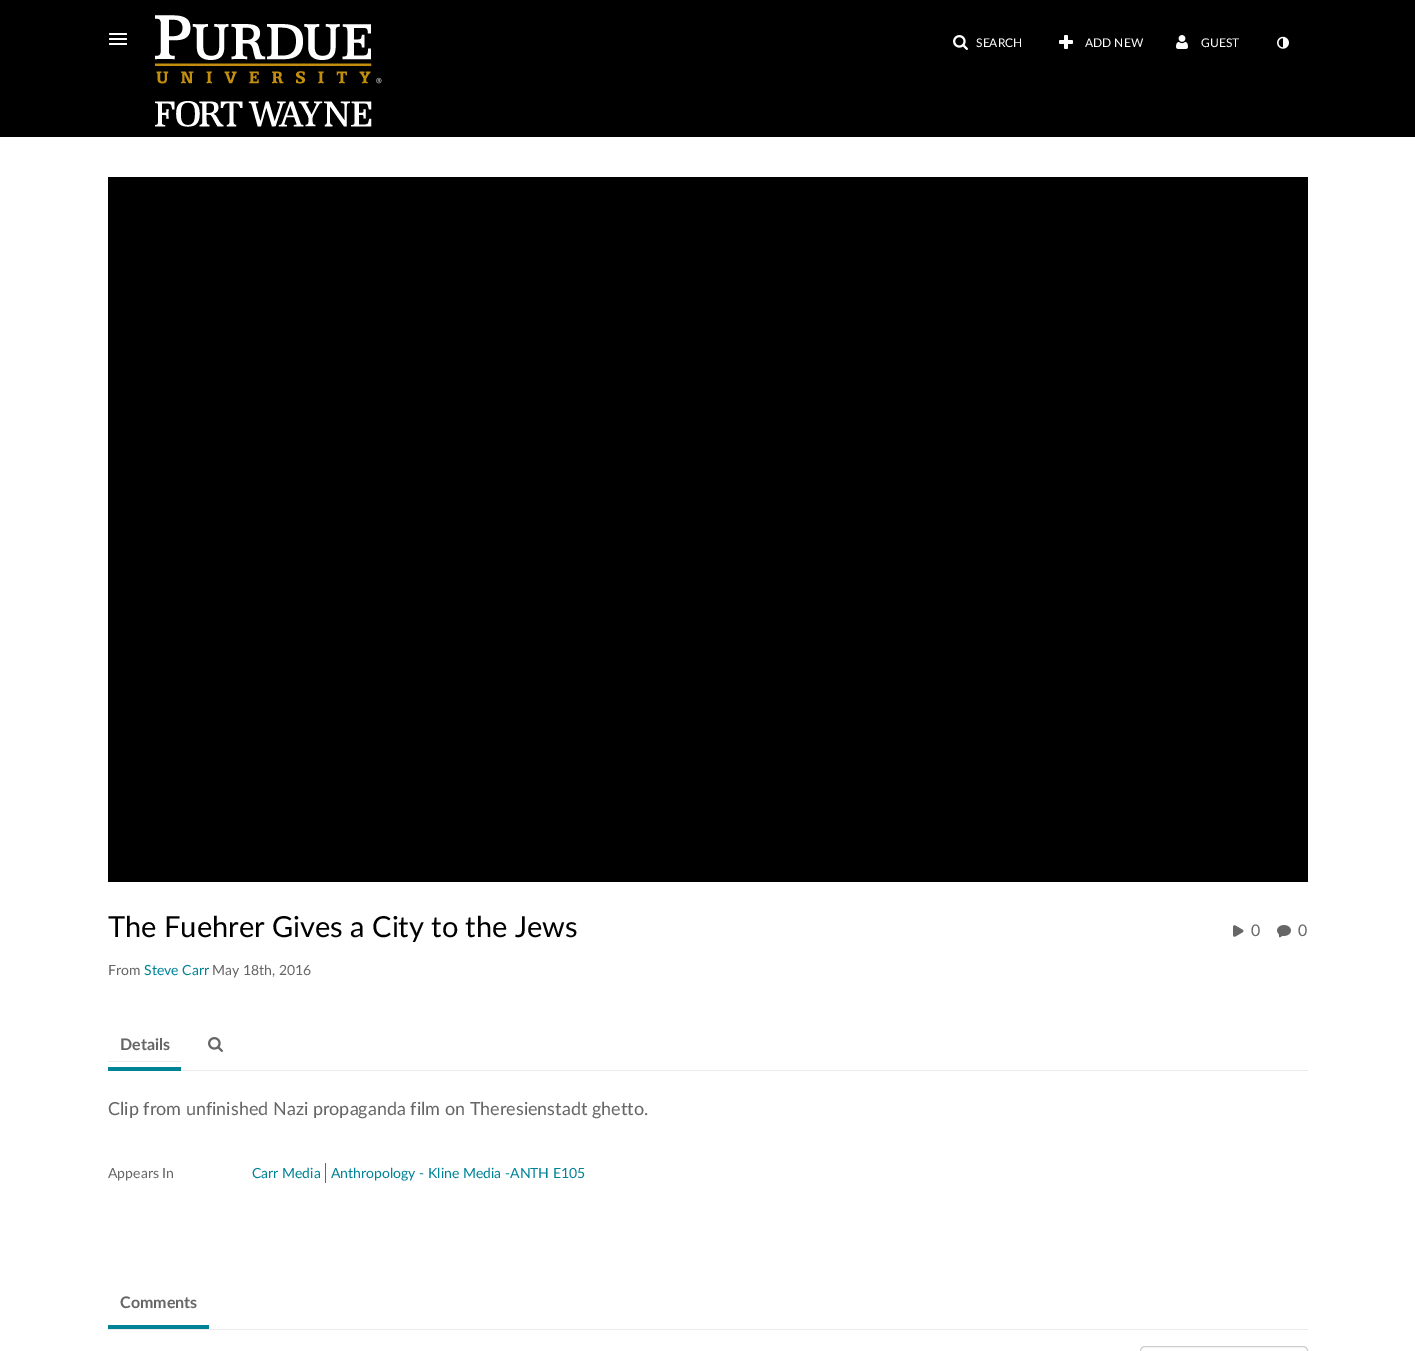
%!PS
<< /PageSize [1415 1351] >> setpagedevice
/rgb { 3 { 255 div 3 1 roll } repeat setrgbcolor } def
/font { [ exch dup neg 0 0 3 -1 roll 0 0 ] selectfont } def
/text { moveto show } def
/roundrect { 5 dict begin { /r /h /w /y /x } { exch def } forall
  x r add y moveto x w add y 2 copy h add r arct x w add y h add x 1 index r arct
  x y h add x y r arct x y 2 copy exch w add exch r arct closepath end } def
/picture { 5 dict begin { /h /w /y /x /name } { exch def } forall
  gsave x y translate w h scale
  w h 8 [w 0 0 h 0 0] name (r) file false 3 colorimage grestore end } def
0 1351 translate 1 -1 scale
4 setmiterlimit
255 255 255 rgb
0 0 1415 1351 rectfill
0 0 0 rgb
0 0 1415 137 rectfill
255 255 255 rgb
109 33 18 2 1 roundrect fill
109 38 18 2 1 roundrect fill
109 43 18 2 1 roundrect fill
(img_01.rgb) 155 15 227 112 picture
(img_02.rgb) 953 35 15 15 picture
(img_03.rgb) 1059 35 14 14 picture
(img_04.rgb) 1176 35 12 14 picture
(img_05.rgb) 1277 36 12 13 picture
0 0 0 rgb
108 177 1200 705 rectfill
(img_06.rgb) 1233 925 11 12 picture
(img_07.rgb) 1277 925 14 13 picture
235 235 235 rgb
181 1070 1127 1 rectfill
108 1061 73 1 rectfill
0 130 151 rgb
108 1067 73 4 rectfill
(img_08.rgb) 208 1037 15 15 picture
102 102 102 rgb
325 1163 1 20 rectfill
235 235 235 rgb
108 1329 1200 1 rectfill
0 130 151 rgb
108 1325 101 4 rectfill
204 204 204 rgb
1140.5 1346.5 167 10 4.5 roundrect stroke
/Lato-Regular 12 font
255 255 255 rgb
(SEARCH) 976 47 text
(ADD NEW) 1085 47 text
(GUEST) 1201 47 text
/Lato-Regular 29 font
0 0 0 rgb
(The Fuehrer Gives a City to the Jews) 108 937 text
/Lato-Regular 14 font
102 102 102 rgb
(From) 108 975 text
0 130 151 rgb
(Steve Carr) 144 975 text
102 102 102 rgb
(May 18th, 2016) 212 975 text
/Lato-Regular 16 font
(0) 1251 936 text
(0) 1298 936 text
/Lato-Bold 16 font
(Details) 120 1050 text
/Lato-Regular 18 font
(Clip from unfinished Nazi propaganda film on Theresienstadt ghetto.) 108 1115 text
/Lato-Regular 14 font
(Appears In) 108 1178 text
0 130 151 rgb
(Carr Media) 252 1178 text
(Anthropology - Kline Media -ANTH E105) 331 1178 text
/Lato-Bold 16 font
102 102 102 rgb
(Comments) 120 1308 text
showpage
